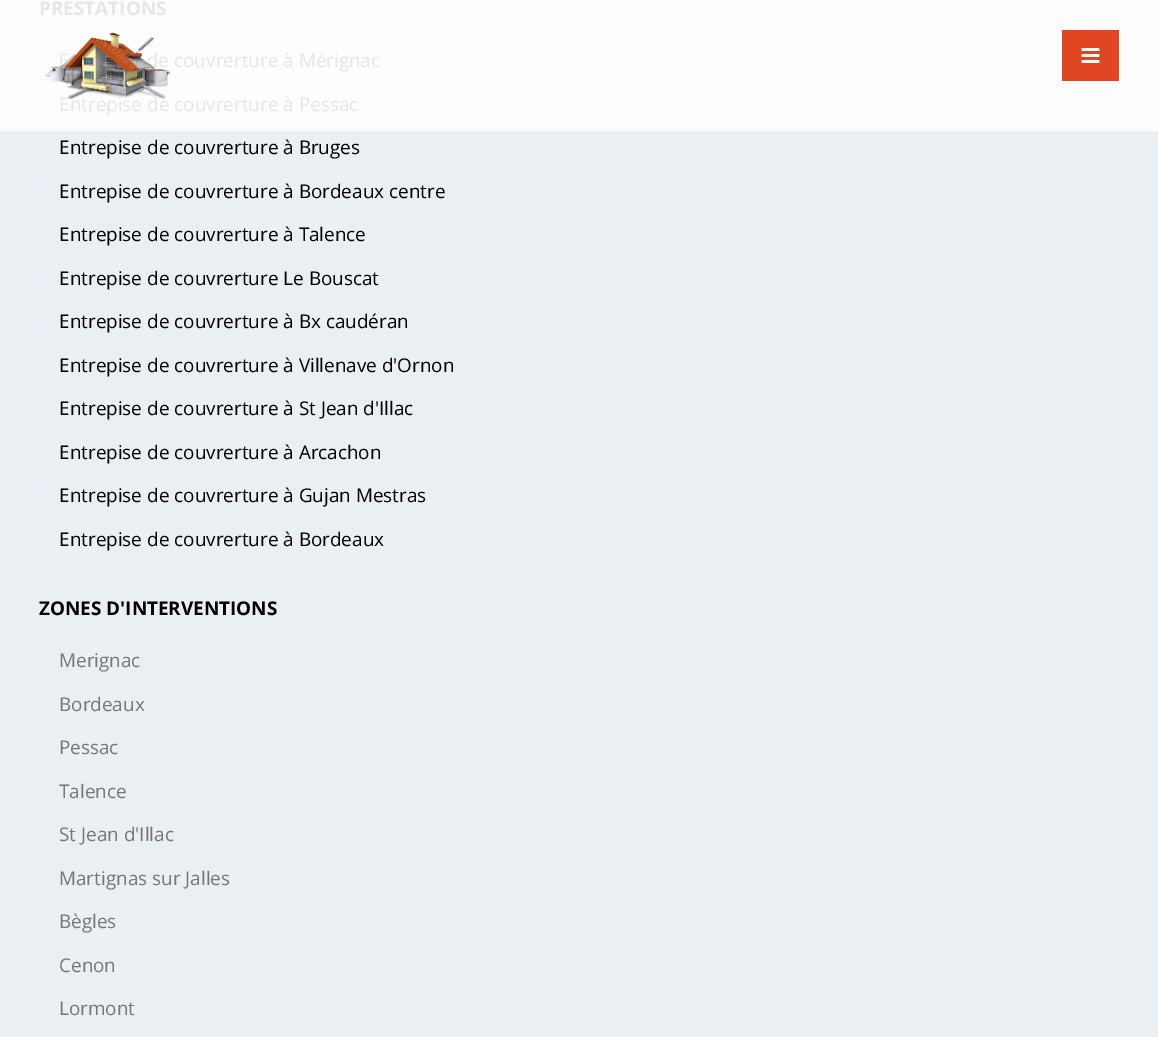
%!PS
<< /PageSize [1158 1037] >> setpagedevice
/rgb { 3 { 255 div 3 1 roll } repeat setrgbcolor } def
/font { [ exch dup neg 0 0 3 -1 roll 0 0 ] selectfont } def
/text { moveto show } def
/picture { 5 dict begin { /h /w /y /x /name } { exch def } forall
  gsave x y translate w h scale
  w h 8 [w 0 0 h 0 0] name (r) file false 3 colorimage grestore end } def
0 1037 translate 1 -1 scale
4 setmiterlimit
233 239 242 rgb
0 0 1158 1037 rectfill
253 253 254 rgb
0 0 1158 131 rectfill
224 70 34 rgb
1062 30 57 51 rectfill
(img_02.rgb) 1081 48 19 15 picture
240 241 241 rgb
0 131 1158 2 rectfill
/OpenSans-Bold 18.9 font
230 230 230 rgb
(PRESTATIONS) 39 15 text
/OpenSans-Regular 18.9 font
(E) 59 67 text
(de couvrerture à Mérignac) 147 67 text
(Entrepise de couvrerture à Pessac) 59 111 text
0 0 0 rgb
(Entrepise de couvrerture à Bruges) 59 154 text
(Entrepise de couvrerture à Bordeaux centre) 59 198 text
(Entrepise de couvrerture à Talence) 59 241 text
(Entrepise de couvrerture Le Bouscat) 59 285 text
(Entrepise de couvrerture à Bx caudéran) 59 328 text
(Entrepise de couvrerture à Villenave d'Ornon) 59 372 text
(Entrepise de couvrerture à St Jean d'Illac) 59 415 text
(Entrepise de couvrerture à Arcachon) 59 459 text
(Entrepise de couvrerture à Gujan Mestras) 59 502 text
(Entrepise de couvrerture à Bordeaux) 59 546 text
/OpenSans-Bold 18.9 font
(ZONES D'INTERVENTIONS) 39 615 text
/OpenSans-Regular 18.9 font
119 119 119 rgb
(Merignac) 59 667 text
(Bordeaux) 59 711 text
(Pessac) 59 754 text
(Talence) 59 798 text
(St Jean d'Illac) 59 841 text
(Martignas sur Jalles) 59 885 text
(Bègles) 59 928 text
(Cenon) 59 972 text
(Lormont) 59 1015 text
(img_01.rgb) 46 32 124 68 picture
showpage
